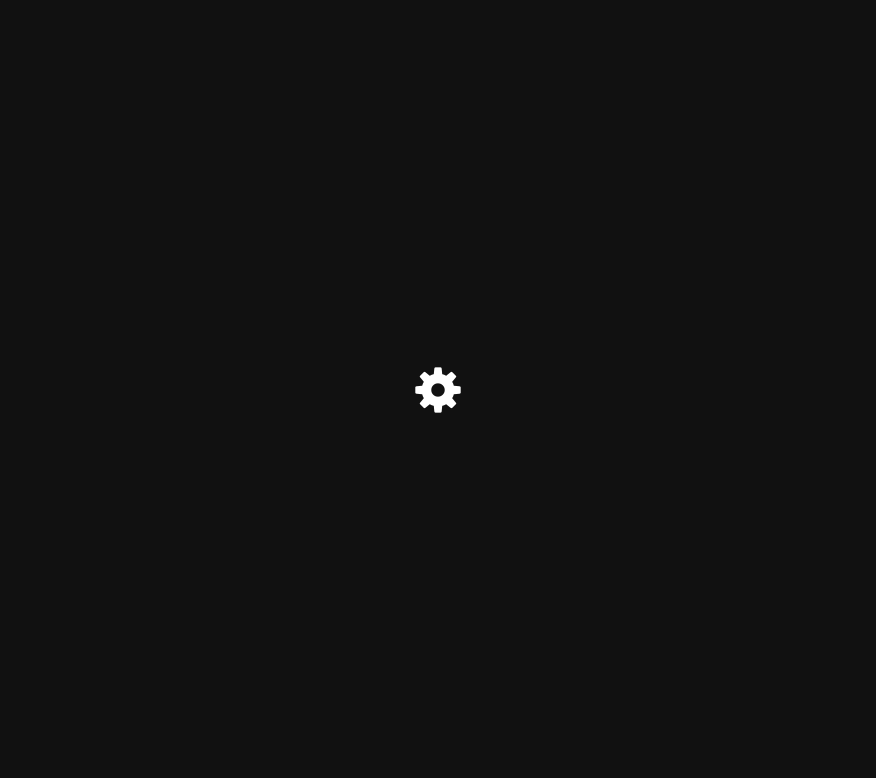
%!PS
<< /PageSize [876 778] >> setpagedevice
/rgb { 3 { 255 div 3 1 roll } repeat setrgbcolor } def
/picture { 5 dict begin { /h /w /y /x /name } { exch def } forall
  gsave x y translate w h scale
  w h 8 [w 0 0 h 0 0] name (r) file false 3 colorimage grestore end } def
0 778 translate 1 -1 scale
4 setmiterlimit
17 17 17 rgb
0 0 876 778 rectfill
(img_01.rgb) 415 367 46 46 picture
showpage
